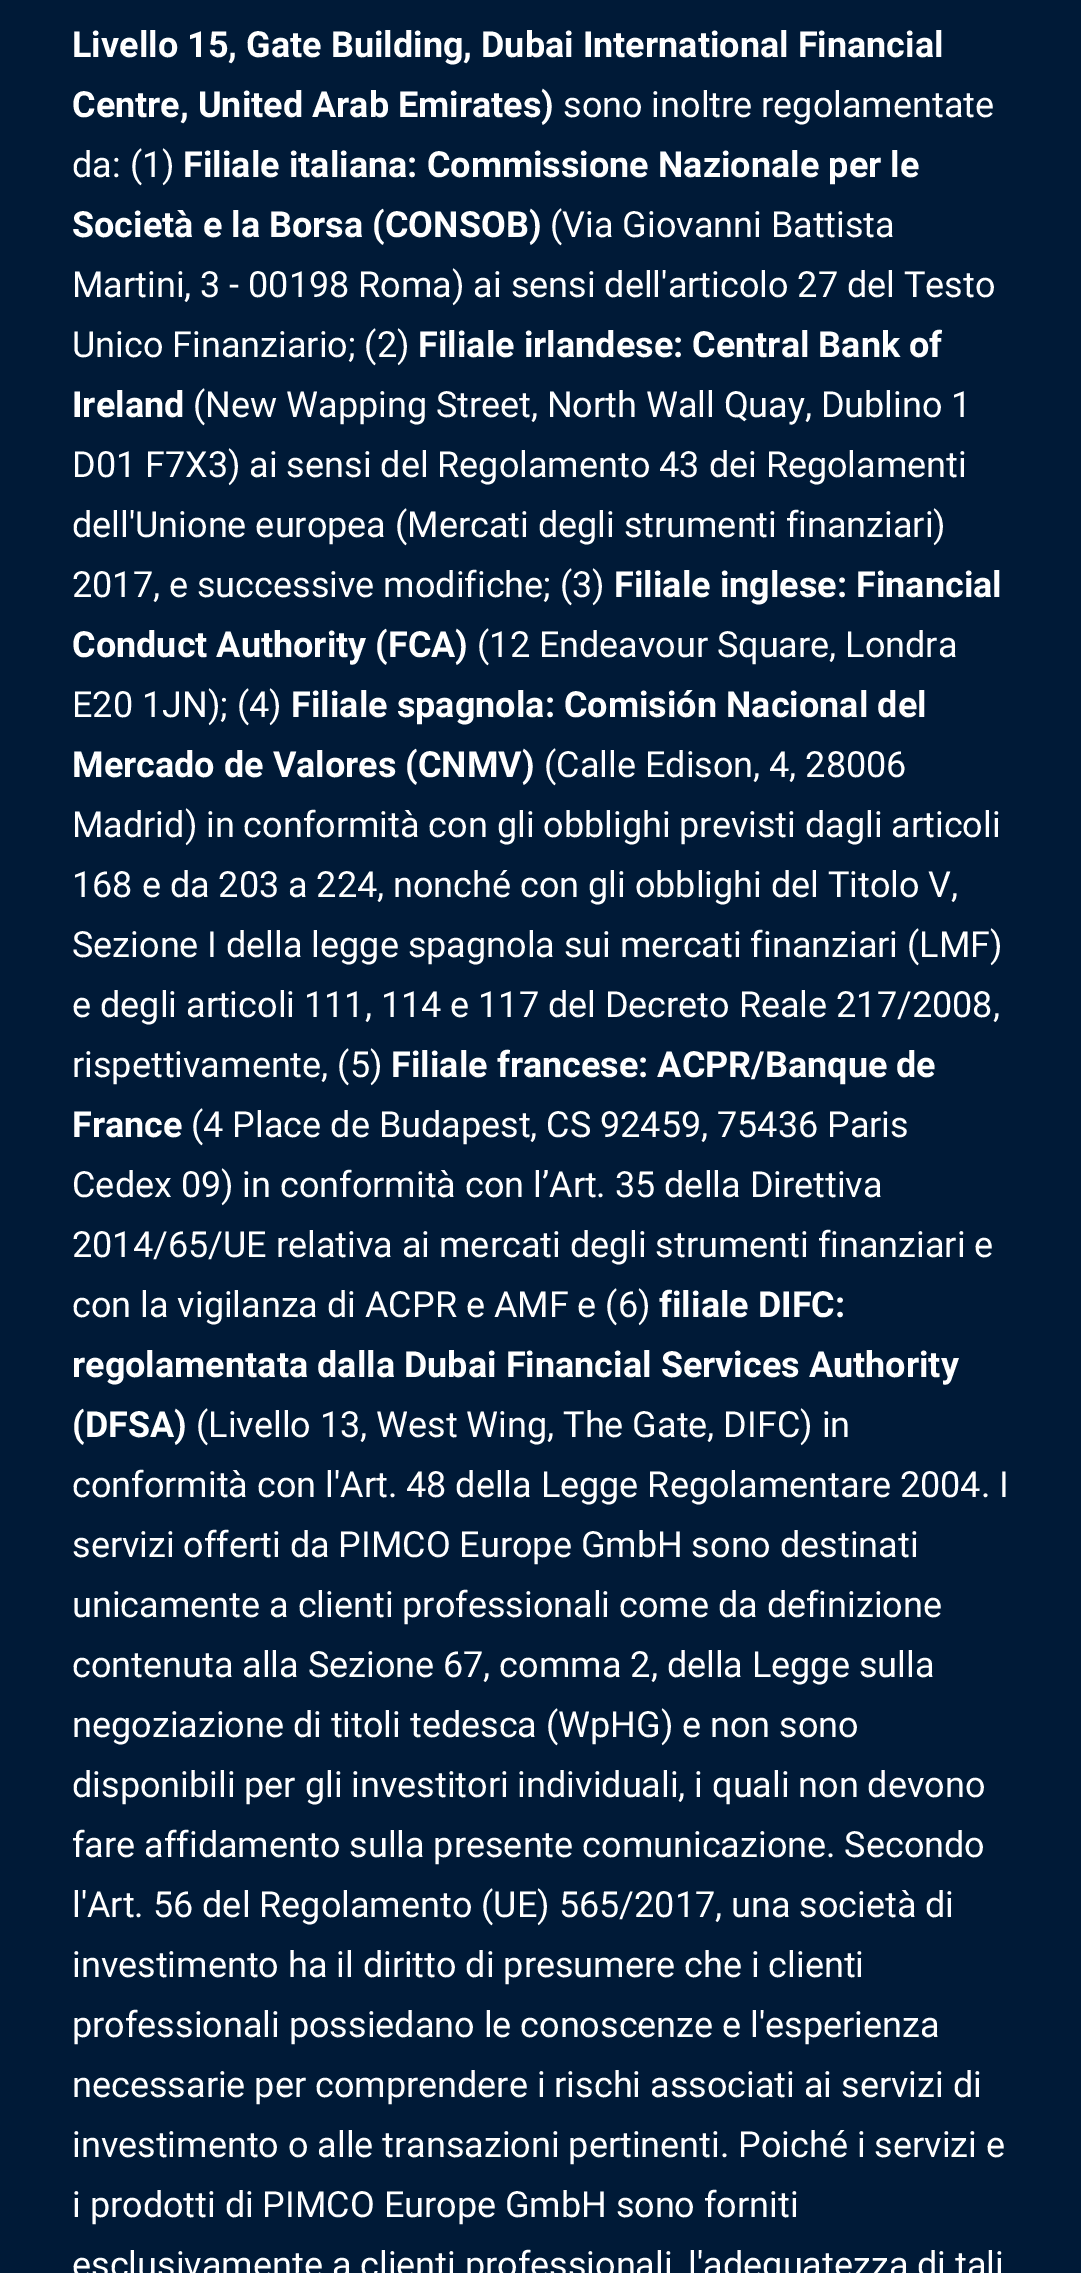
%!PS
<< /PageSize [1081 2273] >> setpagedevice
/rgb { 3 { 255 div 3 1 roll } repeat setrgbcolor } def
/font { [ exch dup neg 0 0 3 -1 roll 0 0 ] selectfont } def
/text { moveto show } def
0 2273 translate 1 -1 scale
4 setmiterlimit
0 26 55 rgb
0 0 1081 2273 rectfill
/Roboto-Bold 36 font
255 255 255 rgb
(Livello 15, Gate Building, Dubai International Financial) 72 57 text
(Centre, United Arab Emirates\)) 72 117 text
/Roboto-Regular 36 font
(sono inoltre regolamentate) 563 117 text
(da: \(1\)) 72 177 text
/Roboto-Bold 36 font
(Filiale italiana: Commissione Nazionale per le) 183 177 text
(Società e la Borsa \(CONSOB\)) 72 237 text
/Roboto-Regular 36 font
(\(Via Giovanni Battista) 550 237 text
(Martini, 3 - 00198 Roma\) ai sensi dell'articolo 27 del Testo) 72 297 text
(Unico Finanziario; \(2\)) 72 357 text
/Roboto-Bold 36 font
(Filiale irlandese: Central Bank of) 418 357 text
(Ireland) 72 417 text
/Roboto-Regular 36 font
(\(New Wapping Street, North Wall Quay, Dublino 1) 193 417 text
(D01 F7X3\) ai sensi del Regolamento 43 dei Regolamenti) 72 477 text
(dell'Unione europea \(Mercati degli strumenti finanziari\)) 72 537 text
(2017, e successive modifiche; \(3\)) 72 597 text
/Roboto-Bold 36 font
(Filiale inglese: Financial) 614 597 text
(Conduct Authority \(FCA\)) 72 657 text
/Roboto-Regular 36 font
(\(12 Endeavour Square, Londra) 477 657 text
(E20 1JN\); \(4\)) 72 717 text
/Roboto-Bold 36 font
(Filiale spagnola: Comisión Nacional del) 291 717 text
(Mercado de Valores \(CNMV\)) 72 777 text
/Roboto-Regular 36 font
(\(Calle Edison, 4, 28006) 544 777 text
(Madrid\) in conformità con gli obblighi previsti dagli articoli) 72 837 text
(168 e da 203 a 224, nonché con gli obblighi del Titolo V,) 72 897 text
(Sezione I della legge spagnola sui mercati finanziari \(LMF\)) 72 957 text
(e degli articoli 111, 114 e 117 del Decreto Reale 217/2008,) 72 1017 text
(rispettivamente, \(5\)) 72 1077 text
/Roboto-Bold 36 font
(Filiale francese: ACPR/Banque de) 391 1077 text
(France) 72 1137 text
/Roboto-Regular 36 font
(\(4 Place de Budapest, CS 92459, 75436 Paris) 191 1137 text
(Cedex 09\) in conformità con l’Art. 35 della Direttiva) 72 1197 text
(2014/65/UE relativa ai mercati degli strumenti finanziari e) 72 1257 text
(con la vigilanza di ACPR e AMF e \(6\)) 72 1317 text
/Roboto-Bold 36 font
(filiale DIFC:) 659 1317 text
(regolamentata dalla Dubai Financial Services Authority) 72 1377 text
(\(DFSA\)) 72 1437 text
/Roboto-Regular 36 font
(\(Livello 13, West Wing, The Gate, DIFC\) in) 196 1437 text
(conformità con l'Art. 48 della Legge Regolamentare 2004. I) 72 1497 text
(servizi offerti da PIMCO Europe GmbH sono destinati) 72 1557 text
(unicamente a clienti professionali come da definizione) 72 1617 text
(contenuta alla Sezione 67, comma 2, della Legge sulla) 72 1677 text
(negoziazione di titoli tedesca \(WpHG\) e non sono) 72 1737 text
(disponibili per gli investitori individuali, i quali non devono) 72 1797 text
(fare affidamento sulla presente comunicazione. Secondo) 72 1857 text
(l'Art. 56 del Regolamento \(UE\) 565/2017, una società di) 72 1917 text
(investimento ha il diritto di presumere che i clienti) 72 1977 text
(professionali possiedano le conoscenze e l'esperienza) 72 2037 text
(necessarie per comprendere i rischi associati ai servizi di) 72 2097 text
(investimento o alle transazioni pertinenti. Poiché i servizi e) 72 2157 text
(i prodotti di PIMCO Europe GmbH sono forniti) 72 2217 text
(esclusivamente a clienti professionali, l'adeguatezza di tali) 72 2277 text
showpage
